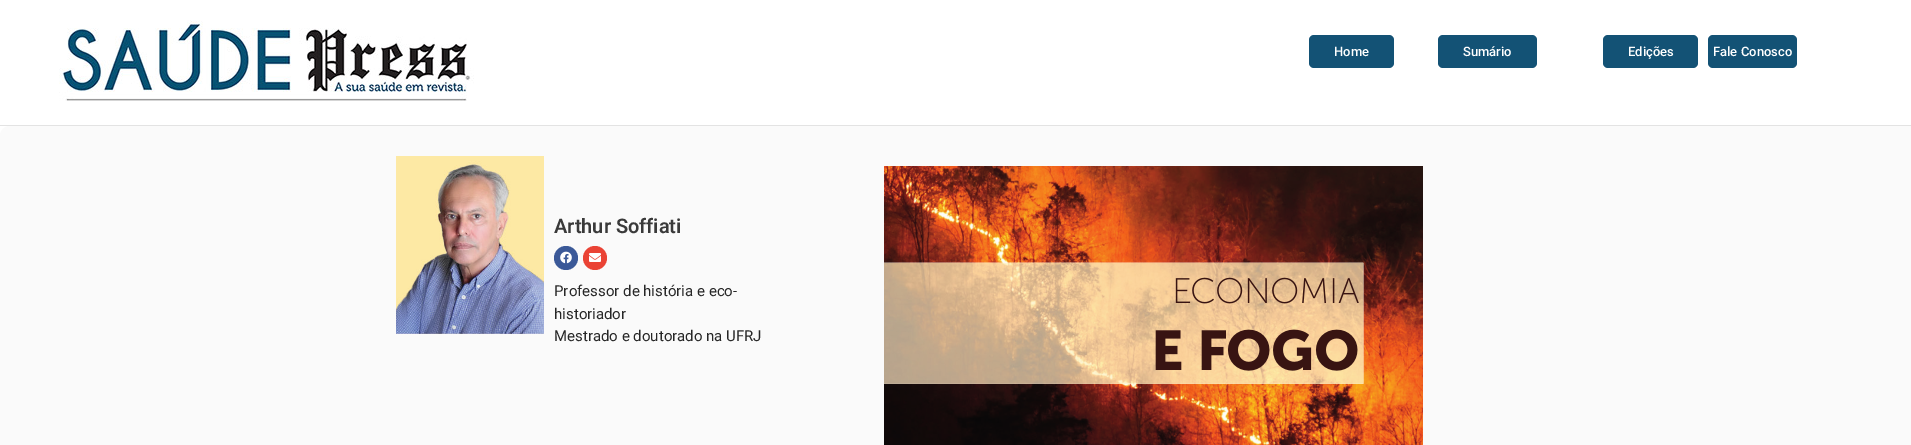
%!PS
<< /PageSize [1911 445] >> setpagedevice
/rgb { 3 { 255 div 3 1 roll } repeat setrgbcolor } def
/font { [ exch dup neg 0 0 3 -1 roll 0 0 ] selectfont } def
/text { moveto show } def
/circle { newpath 0 360 arc closepath } def
/roundrect { 5 dict begin { /r /h /w /y /x } { exch def } forall
  x r add y moveto x w add y 2 copy h add r arct x w add y h add x 1 index r arct
  x y h add x y r arct x y 2 copy exch w add exch r arct closepath end } def
/picture { 5 dict begin { /h /w /y /x /name } { exch def } forall
  gsave x y translate w h scale
  w h 8 [w 0 0 h 0 0] name (r) file false 3 colorimage grestore end } def
0 445 translate 1 -1 scale
4 setmiterlimit
255 255 255 rgb
0 0 1911 445 rectfill
227 227 227 rgb
0 125 1911 1 rectfill
(img_01.rgb) 59 20 415 81 picture
19 82 117 rgb
1309 35 85 33 5 roundrect fill
1438 35 99 33 5 roundrect fill
1603 35 95 33 5 roundrect fill
1708 35 89 33 5 roundrect fill
250 250 250 rgb
10 126 moveto 1901 0 rlineto 0 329 rlineto -1901 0 rlineto -5.5 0 -10 -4.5 -10 -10 rcurveto 0 -309 rlineto 0 -5.5 4.5 -10 10 -10 rcurveto closepath fill
(img_02.rgb) 396 156 148 178 picture
59 89 152 rgb
566 258 12 circle fill
(img_03.rgb) 560 251 12 13 picture
234 67 53 rgb
595 258 12 circle fill
(img_04.rgb) 589 253 12 9 picture
(img_05.rgb) 884 166 539 279 picture
/Roboto-Medium 13 font
255 255 255 rgb
(Home) 1334 56 text
(Sumário) 1463 56 text
(Edições) 1628 56 text
(Fale Conosco) 1713 56 text
/Roboto-SemiBold 20 font
58 58 58 rgb
(Arthur Soffiati) 554 233 text
/Roboto-Regular 15 font
39 39 39 rgb
(Professor de história e eco-) 554 296 text
(historiador) 554 319 text
(Mestrado e doutorado na UFRJ) 554 341 text
showpage
